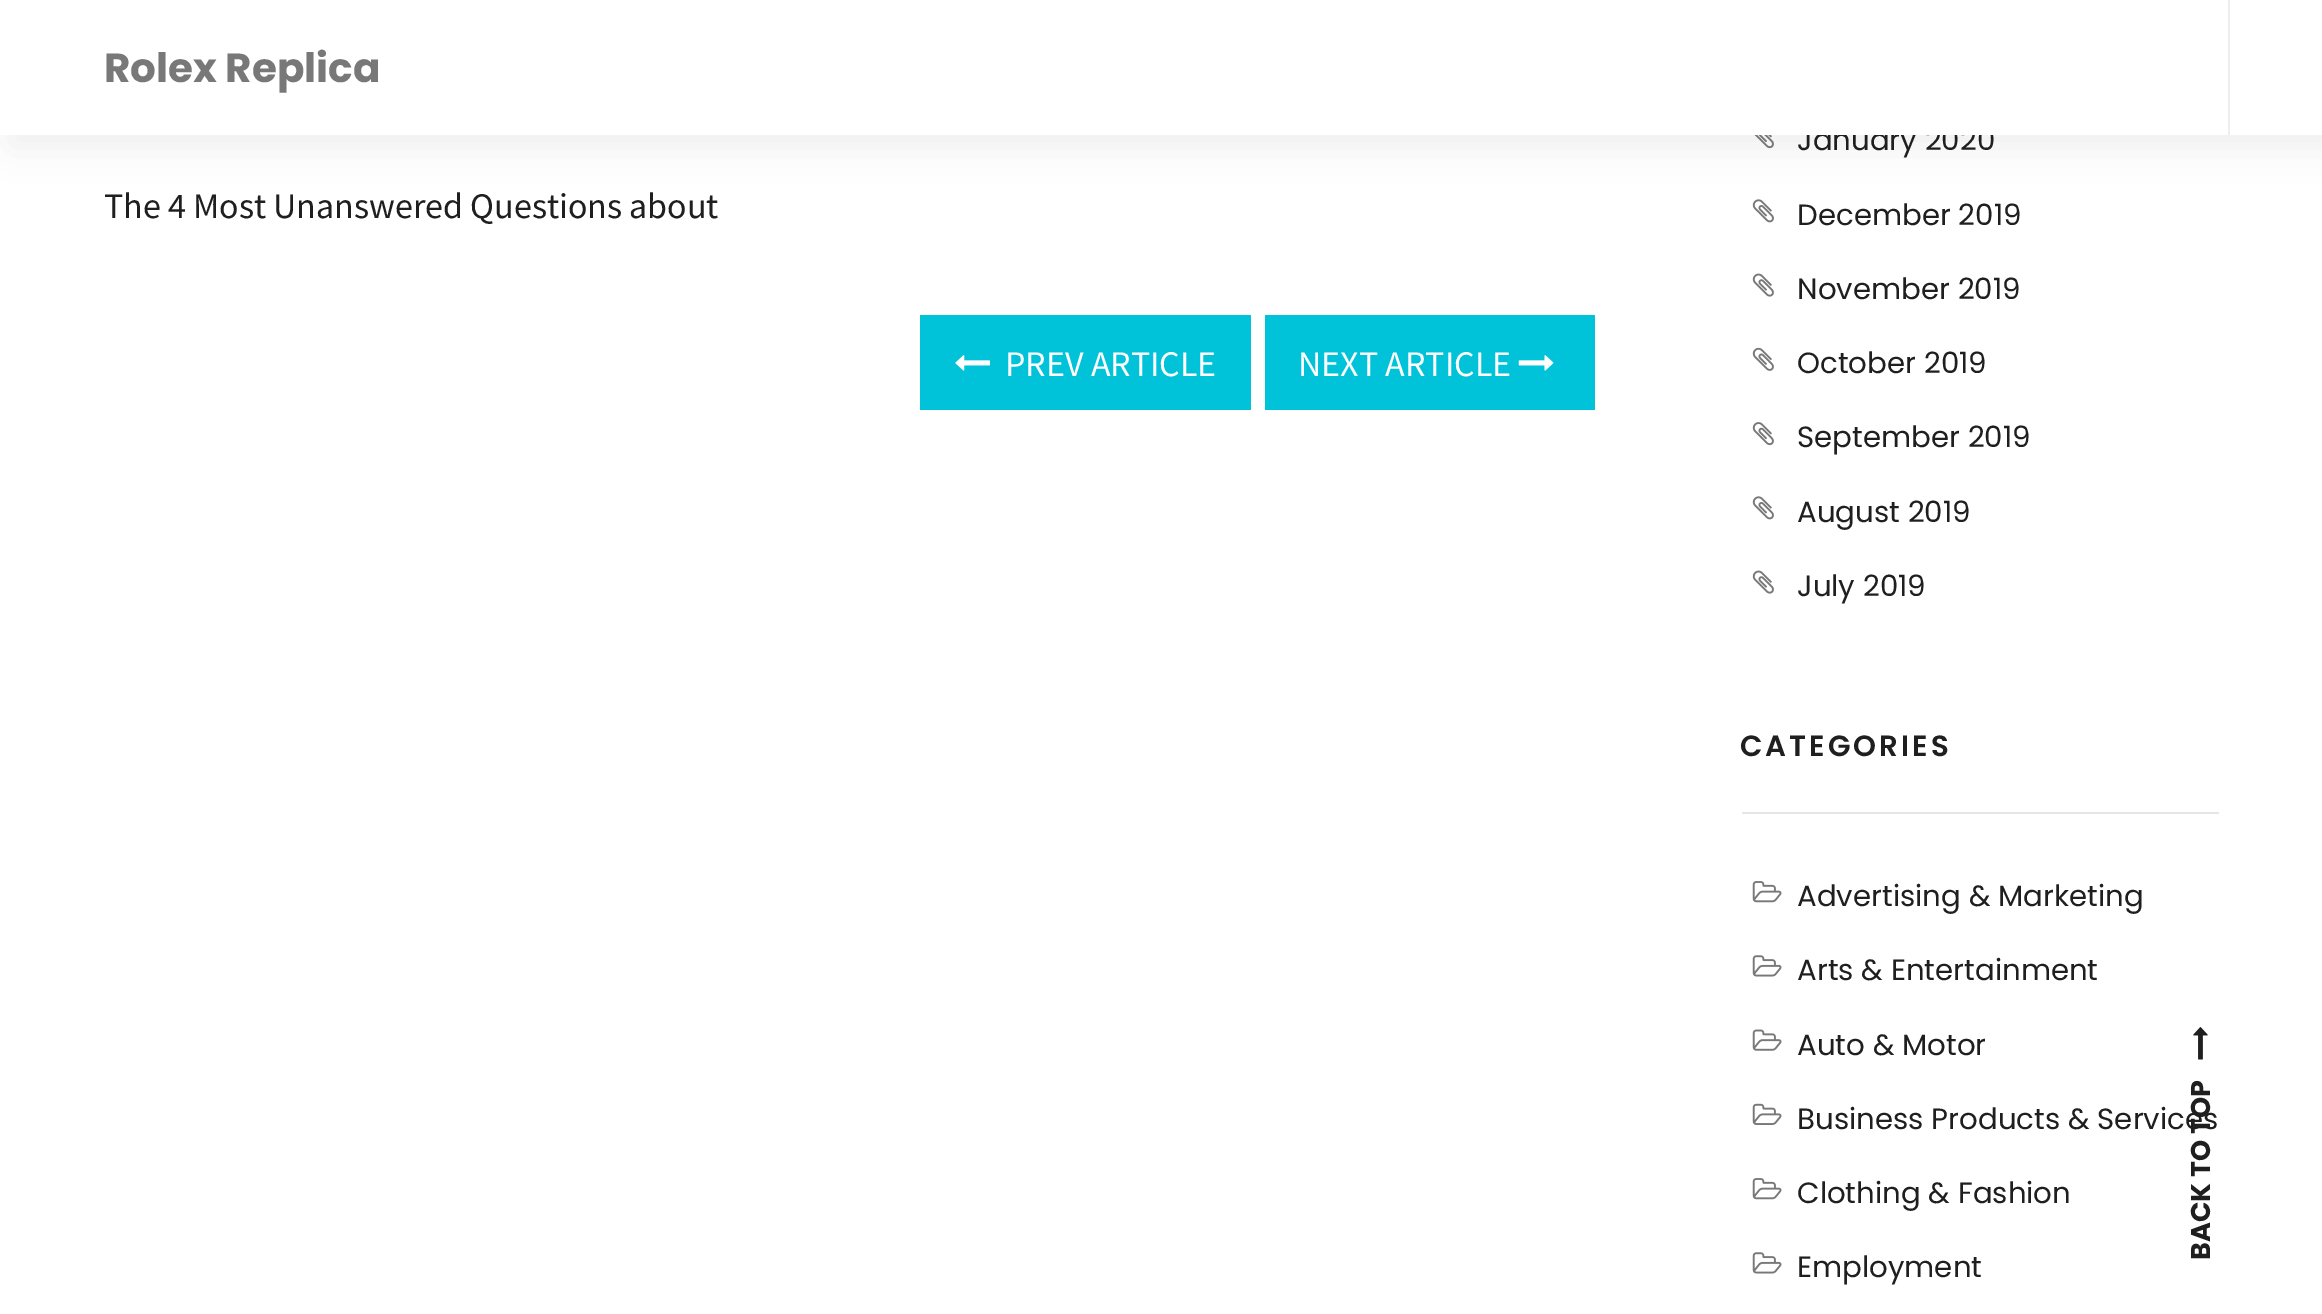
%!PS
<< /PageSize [2322 1314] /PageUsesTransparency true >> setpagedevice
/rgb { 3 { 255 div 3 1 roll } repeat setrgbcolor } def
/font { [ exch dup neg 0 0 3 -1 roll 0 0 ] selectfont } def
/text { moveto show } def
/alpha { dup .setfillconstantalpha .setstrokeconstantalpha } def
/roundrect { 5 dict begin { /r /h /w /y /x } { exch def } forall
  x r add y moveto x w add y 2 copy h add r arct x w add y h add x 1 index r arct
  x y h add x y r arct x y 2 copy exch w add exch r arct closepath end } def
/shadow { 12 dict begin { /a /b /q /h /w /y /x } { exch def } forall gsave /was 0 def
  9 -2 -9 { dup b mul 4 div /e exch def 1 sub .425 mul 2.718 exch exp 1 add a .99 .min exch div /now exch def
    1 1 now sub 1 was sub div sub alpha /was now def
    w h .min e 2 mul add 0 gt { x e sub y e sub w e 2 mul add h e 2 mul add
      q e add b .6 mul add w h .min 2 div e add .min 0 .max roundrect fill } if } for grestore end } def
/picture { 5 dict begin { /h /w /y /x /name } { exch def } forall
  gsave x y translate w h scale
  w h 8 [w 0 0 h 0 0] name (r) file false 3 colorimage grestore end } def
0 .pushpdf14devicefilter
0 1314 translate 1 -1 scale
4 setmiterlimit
255 255 255 rgb
0 0 2322 1314 rectfill
(img_03.rgb) 1754 135 20 14 picture
31 31 31 rgb
11 11 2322 135 0 17 0.07 shadow
0 195 218 rgb
920 315 331 95 rectfill
(img_01.rgb) 955 355 35 16 picture
1265 315 330 95 rectfill
(img_02.rgb) 1518 355 36 16 picture
(img_04.rgb) 1752 199 22 24 picture
(img_05.rgb) 1752 273 22 24 picture
(img_06.rgb) 1752 347 22 24 picture
(img_07.rgb) 1752 422 22 24 picture
(img_04.rgb) 1752 496 22 24 picture
(img_05.rgb) 1752 570 22 24 picture
230 230 230 rgb
1742 812 477 2 rectfill
(img_08.rgb) 1752 881 30 22 picture
(img_09.rgb) 1752 955 30 22 picture
(img_10.rgb) 1752 1029 30 22 picture
(img_11.rgb) 1752 1103 30 22 picture
(img_08.rgb) 1752 1178 30 22 picture
(img_09.rgb) 1752 1252 30 22 picture
(img_12.rgb) 2193 1027 15 33 picture
/SourceSansPro-Regular 36 font
31 31 31 rgb
(The 4 Most Unanswered Questions about) 104 218 text
255 255 255 rgb
(PREV ARTICLE) 1005 376 text
(NEXT ARTICLE) 1298 376 text
/Poppins-Regular 29.25 font
31 31 31 rgb
(January 2020) 1797 150 text
255 255 255 rgb
0 0 2322 135 rectfill
/Poppins-Bold 40.5 font
120 120 120 rgb
(Rolex Replica) 104 82 text
238 238 238 rgb
2228 0 2 135 rectfill
/Poppins-Regular 29.25 font
31 31 31 rgb
(December 2019) 1797 225 text
(November 2019) 1797 299 text
(October 2019) 1797 373 text
(September 2019) 1797 447 text
(August 2019) 1797 522 text
(July 2019) 1797 596 text
/Poppins-SemiBold 29.25 font
1740 756 moveto 3 0 (CATEGORIES) ashow
/Poppins-Regular 29.25 font
(Advertising & Marketing) 1797 906 text
(Arts & Entertainment) 1797 980 text
(Auto & Motor) 1797 1055 text
(Business Products & Services) 1797 1129 text
(Clothing & Fashion) 1797 1203 text
(Employment) 1797 1277 text
/Poppins-Bold 27 font
gsave 2210 1260 translate -90 rotate 0 0 moveto (BACK TO TOP) show grestore
.poppdf14devicefilter showpage
